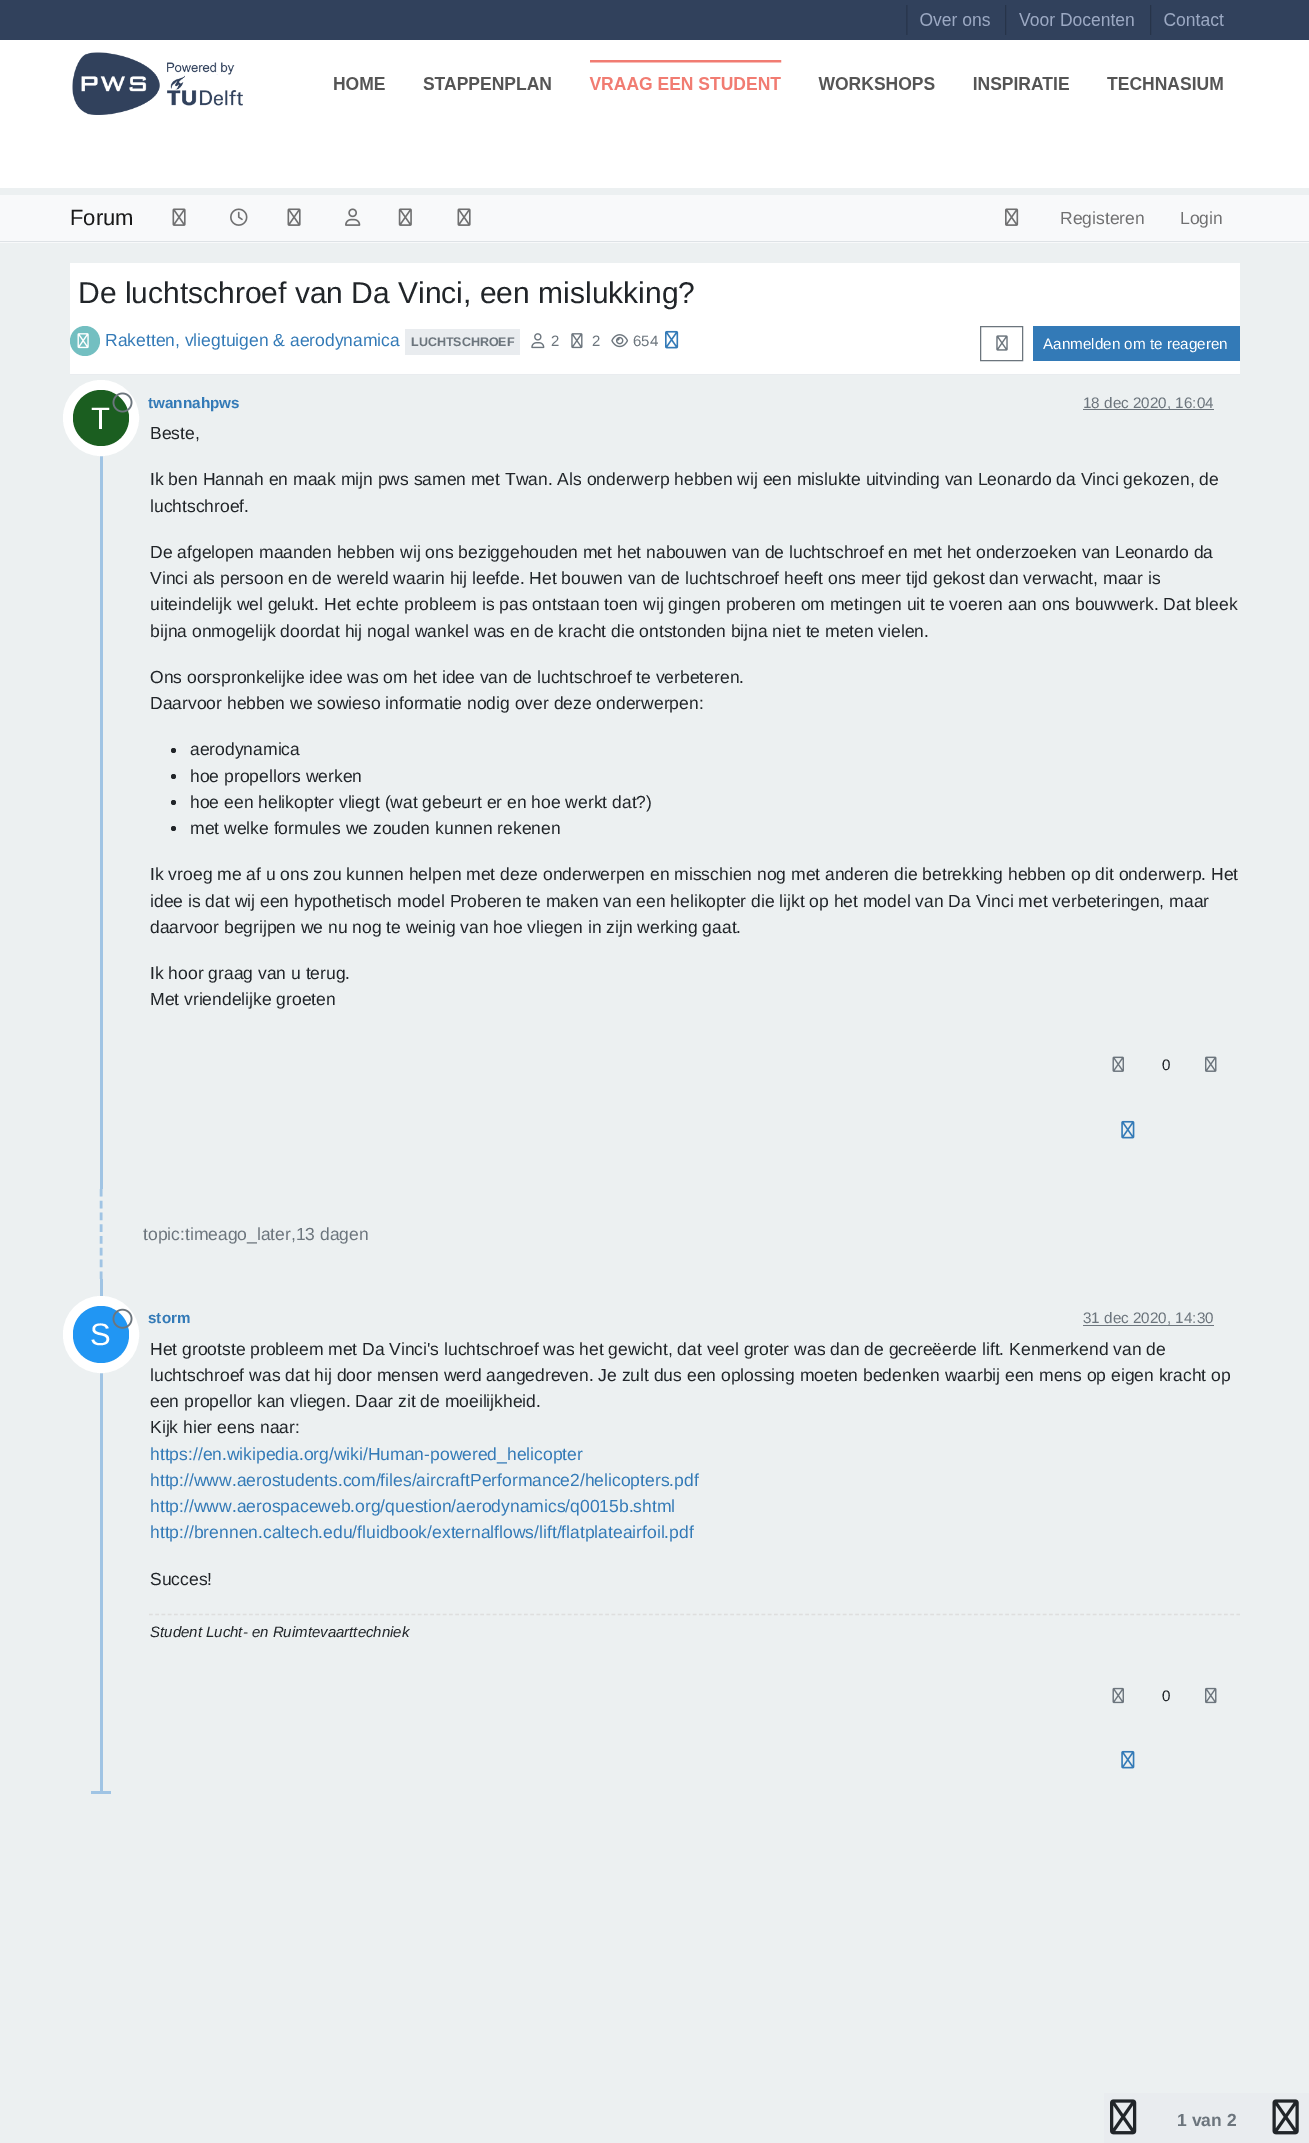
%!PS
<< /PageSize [1309 2143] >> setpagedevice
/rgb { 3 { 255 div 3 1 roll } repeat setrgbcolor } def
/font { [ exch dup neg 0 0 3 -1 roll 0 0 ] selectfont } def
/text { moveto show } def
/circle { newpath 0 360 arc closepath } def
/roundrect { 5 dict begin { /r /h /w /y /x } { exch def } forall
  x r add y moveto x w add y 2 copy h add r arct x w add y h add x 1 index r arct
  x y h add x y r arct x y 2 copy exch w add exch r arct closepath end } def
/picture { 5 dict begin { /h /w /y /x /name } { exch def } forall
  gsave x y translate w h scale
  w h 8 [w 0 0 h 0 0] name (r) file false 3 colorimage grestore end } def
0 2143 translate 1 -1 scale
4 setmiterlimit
236 240 241 rgb
0 0 1309 2143 rectfill
(img_01.rgb) 0 0 1309 115 picture
255 255 255 rgb
0 115 1309 73 rectfill
248 249 250 rgb
0 195 1309 48 rectfill
222 226 230 rgb
0 241 1309 1 rectfill
(img_02.rgb) 172 208 14 18 picture
(img_03.rgb) 230 208 18 18 picture
(img_02.rgb) 287 208 14 18 picture
(img_04.rgb) 345 208 16 18 picture
(img_05.rgb) 398 208 14 18 picture
(img_02.rgb) 457 208 14 18 picture
(img_06.rgb) 1005 208 14 18 picture
255 255 255 rgb
70 263 1170 111 rectfill
233 236 239 rgb
70 374 1170 1 rectfill
115 191 193 rgb
85 341 15 circle fill
(img_07.rgb) 77 333 12 16 picture
233 236 239 rgb
405 329 115 26 rectfill
(img_08.rgb) 531 333 14 16 picture
(img_09.rgb) 571 333 12 16 picture
(img_10.rgb) 611 334 18 14 picture
(img_11.rgb) 665 330 14 19 picture
108 117 125 rgb
980.5 326.5 42 34 rectstroke
(img_12.rgb) 996 335 12 16 picture
51 122 183 rgb
1033 326 207 35 rectfill
160 196 228 rgb
100 388 3 801 rectfill
108 117 125 rgb
1083 409 131 1 rectfill
255 255 255 rgb
10 setlinewidth
101 418 33 circle stroke
27 94 32 rgb
101 418 28 circle fill
(img_13.rgb) 112 392 21 21 picture
33 37 41 rgb
173.5 750.5 2.5 circle fill
173.5 776.5 2.5 circle fill
173.5 802.5 2.5 circle fill
173.5 828.5 2.5 circle fill
(img_14.rgb) 1112 1056 12 16 picture
(img_15.rgb) 1205 1056 12 16 picture
(img_16.rgb) 1121 1120 14 19 picture
160 196 228 rgb
2.5 setlinewidth
[7.5 4.29] 0 setdash
101 1189 moveto 0 90 rlineto stroke
100 1279 3 515 rectfill
108 117 125 rgb
1083 1325 131 1 rectfill
255 255 255 rgb
10 setlinewidth
[] 0 setdash
68 1301 66 67 33 roundrect stroke
33 150 243 rgb
73 1306 56 57 28 roundrect fill
(img_17.rgb) 112 1308 21 21 picture
222 222 222 rgb
1.2 setlinewidth
[3.75 2.5] 0 setdash
149 1614.5 moveto 1091 0 rlineto stroke
(img_18.rgb) 1112 1687 12 17 picture
(img_19.rgb) 1205 1687 12 17 picture
(img_16.rgb) 1121 1750 14 19 picture
160 196 228 rgb
91 1791 20 3 rectfill
233 236 239 rgb
1104 2093 205 50 rectfill
(img_20.rgb) 1110 2099 27 36 picture
(img_21.rgb) 1272 2099 27 36 picture
/LiberationSans-Regular 22 font
25 25 25 rgb
(Forum) 70 225 text
/LiberationSans-Regular 17.5 font
112 112 113 rgb
(Registeren) 1060 224 text
(Login) 1180 224 text
/LiberationSans-Regular 30 font
33 37 41 rgb
(De luchtschroef van Da Vinci, een mislukking?) 78 303 text
/LiberationSans-Regular 17.5 font
51 122 183 rgb
(Raketten, vliegtuigen & aerodynamica) 105 346 text
/LiberationSans-Bold 12.5 font
108 117 125 rgb
(LUCHTSCHROEF) 411 346 text
/LiberationSans-Regular 15 font
(2) 551 346 text
(2) 592 346 text
(654) 633 346 text
/LiberationSans-Regular 15.25 font
255 255 255 rgb
(Aanmelden om te reageren) 1043 349 text
/LiberationSans-Bold 15.25 font
51 122 183 rgb
(twannahpws) 148 408 text
/LiberationSans-Regular 15.25 font
108 117 125 rgb
(18 dec 2020, 16:04) 1083 408 text
/LiberationSans-Regular 31 font
255 255 255 rgb
(T) 91 429 text
/LiberationSans-Regular 17.5 font
33 37 41 rgb
(Beste,) 150 439 text
(Ik ben Hannah en maak mijn pws samen met Twan. Als onderwerp hebben wij een mislukte uitvinding van Leonardo da Vinci gekozen, de) 150 485 text
(luchtschroef.) 150 512 text
(De afgelopen maanden hebben wij ons beziggehouden met het nabouwen van de luchtschroef en met het onderzoeken van Leonardo da) 150 558 text
(Vinci als persoon en de wereld waarin hij leefde. Het bouwen van de luchtschroef heeft ons meer tijd gekost dan verwacht, maar is) 150 584 text
(uiteindelijk wel gelukt. Het echte probleem is pas ontstaan toen wij gingen proberen om metingen uit te voeren aan ons bouwwerk. Dat bleek) 150 610 text
(bijna onmogelijk doordat hij nogal wankel was en de kracht die ontstonden bijna niet te meten vielen.) 150 637 text
(Ons oorspronkelijke idee was om het idee van de luchtschroef te verbeteren.) 150 683 text
(Daarvoor hebben we sowieso informatie nodig over deze onderwerpen:) 150 709 text
(aerodynamica) 190 755 text
(hoe propellors werken) 190 782 text
(hoe een helikopter vliegt \(wat gebeurt er en hoe werkt dat?\)) 190 808 text
(met welke formules we zouden kunnen rekenen) 190 834 text
(Ik vroeg me af u ons zou kunnen helpen met deze onderwerpen en misschien nog met anderen die betrekking hebben op dit onderwerp. Het) 150 880 text
(idee is dat wij een hypothetisch model Proberen te maken van een helikopter die lijkt op het model van Da Vinci met verbeteringen, maar) 150 907 text
(daarvoor begrijpen we nu nog te weinig van hoe vliegen in zijn werking gaat.) 150 933 text
(Ik hoor graag van u terug.) 150 979 text
(Met vriendelijke groeten) 150 1005 text
/LiberationSans-Regular 15.25 font
(0) 1162 1070 text
/LiberationSans-Regular 17.5 font
108 117 125 rgb
(topic:timeago_later,13 dagen) 143 1240 text
/LiberationSans-Bold 15.25 font
51 122 183 rgb
(storm) 148 1323 text
/LiberationSans-Regular 15.25 font
108 117 125 rgb
(31 dec 2020, 14:30) 1083 1323 text
/LiberationSans-Regular 31 font
255 255 255 rgb
(S) 90 1345 text
/LiberationSans-Regular 17.5 font
33 37 41 rgb
(Het grootste probleem met Da Vinci's luchtschroef was het gewicht, dat veel groter was dan de gecreëerde lift. Kenmerkend van de) 150 1355 text
(luchtschroef was dat hij door mensen werd aangedreven. Je zult dus een oplossing moeten bedenken waarbij een mens op eigen kracht op) 150 1381 text
(een propellor kan vliegen. Daar zit de moeilijkheid.) 150 1407 text
(Kijk hier eens naar:) 150 1433 text
51 122 183 rgb
(https://en.wikipedia.org/wiki/Human-powered_helicopter) 150 1460 text
(http://www.aerostudents.com/files/aircraftPerformance2/helicopters.pdf) 150 1486 text
(http://www.aerospaceweb.org/question/aerodynamics/q0015b.shtml) 150 1512 text
(http://brennen.caltech.edu/fluidbook/externalflows/lift/flatplateairfoil.pdf) 150 1538 text
33 37 41 rgb
(Succes!) 150 1585 text
/LiberationSans-Italic 15 font
(Student Lucht- en Ruimtevaarttechniek) 150 1637 text
/LiberationSans-Regular 15.25 font
(0) 1162 1701 text
/LiberationSans-Bold 17.5 font
108 117 125 rgb
(1 van 2) 1177 2126 text
showpage
